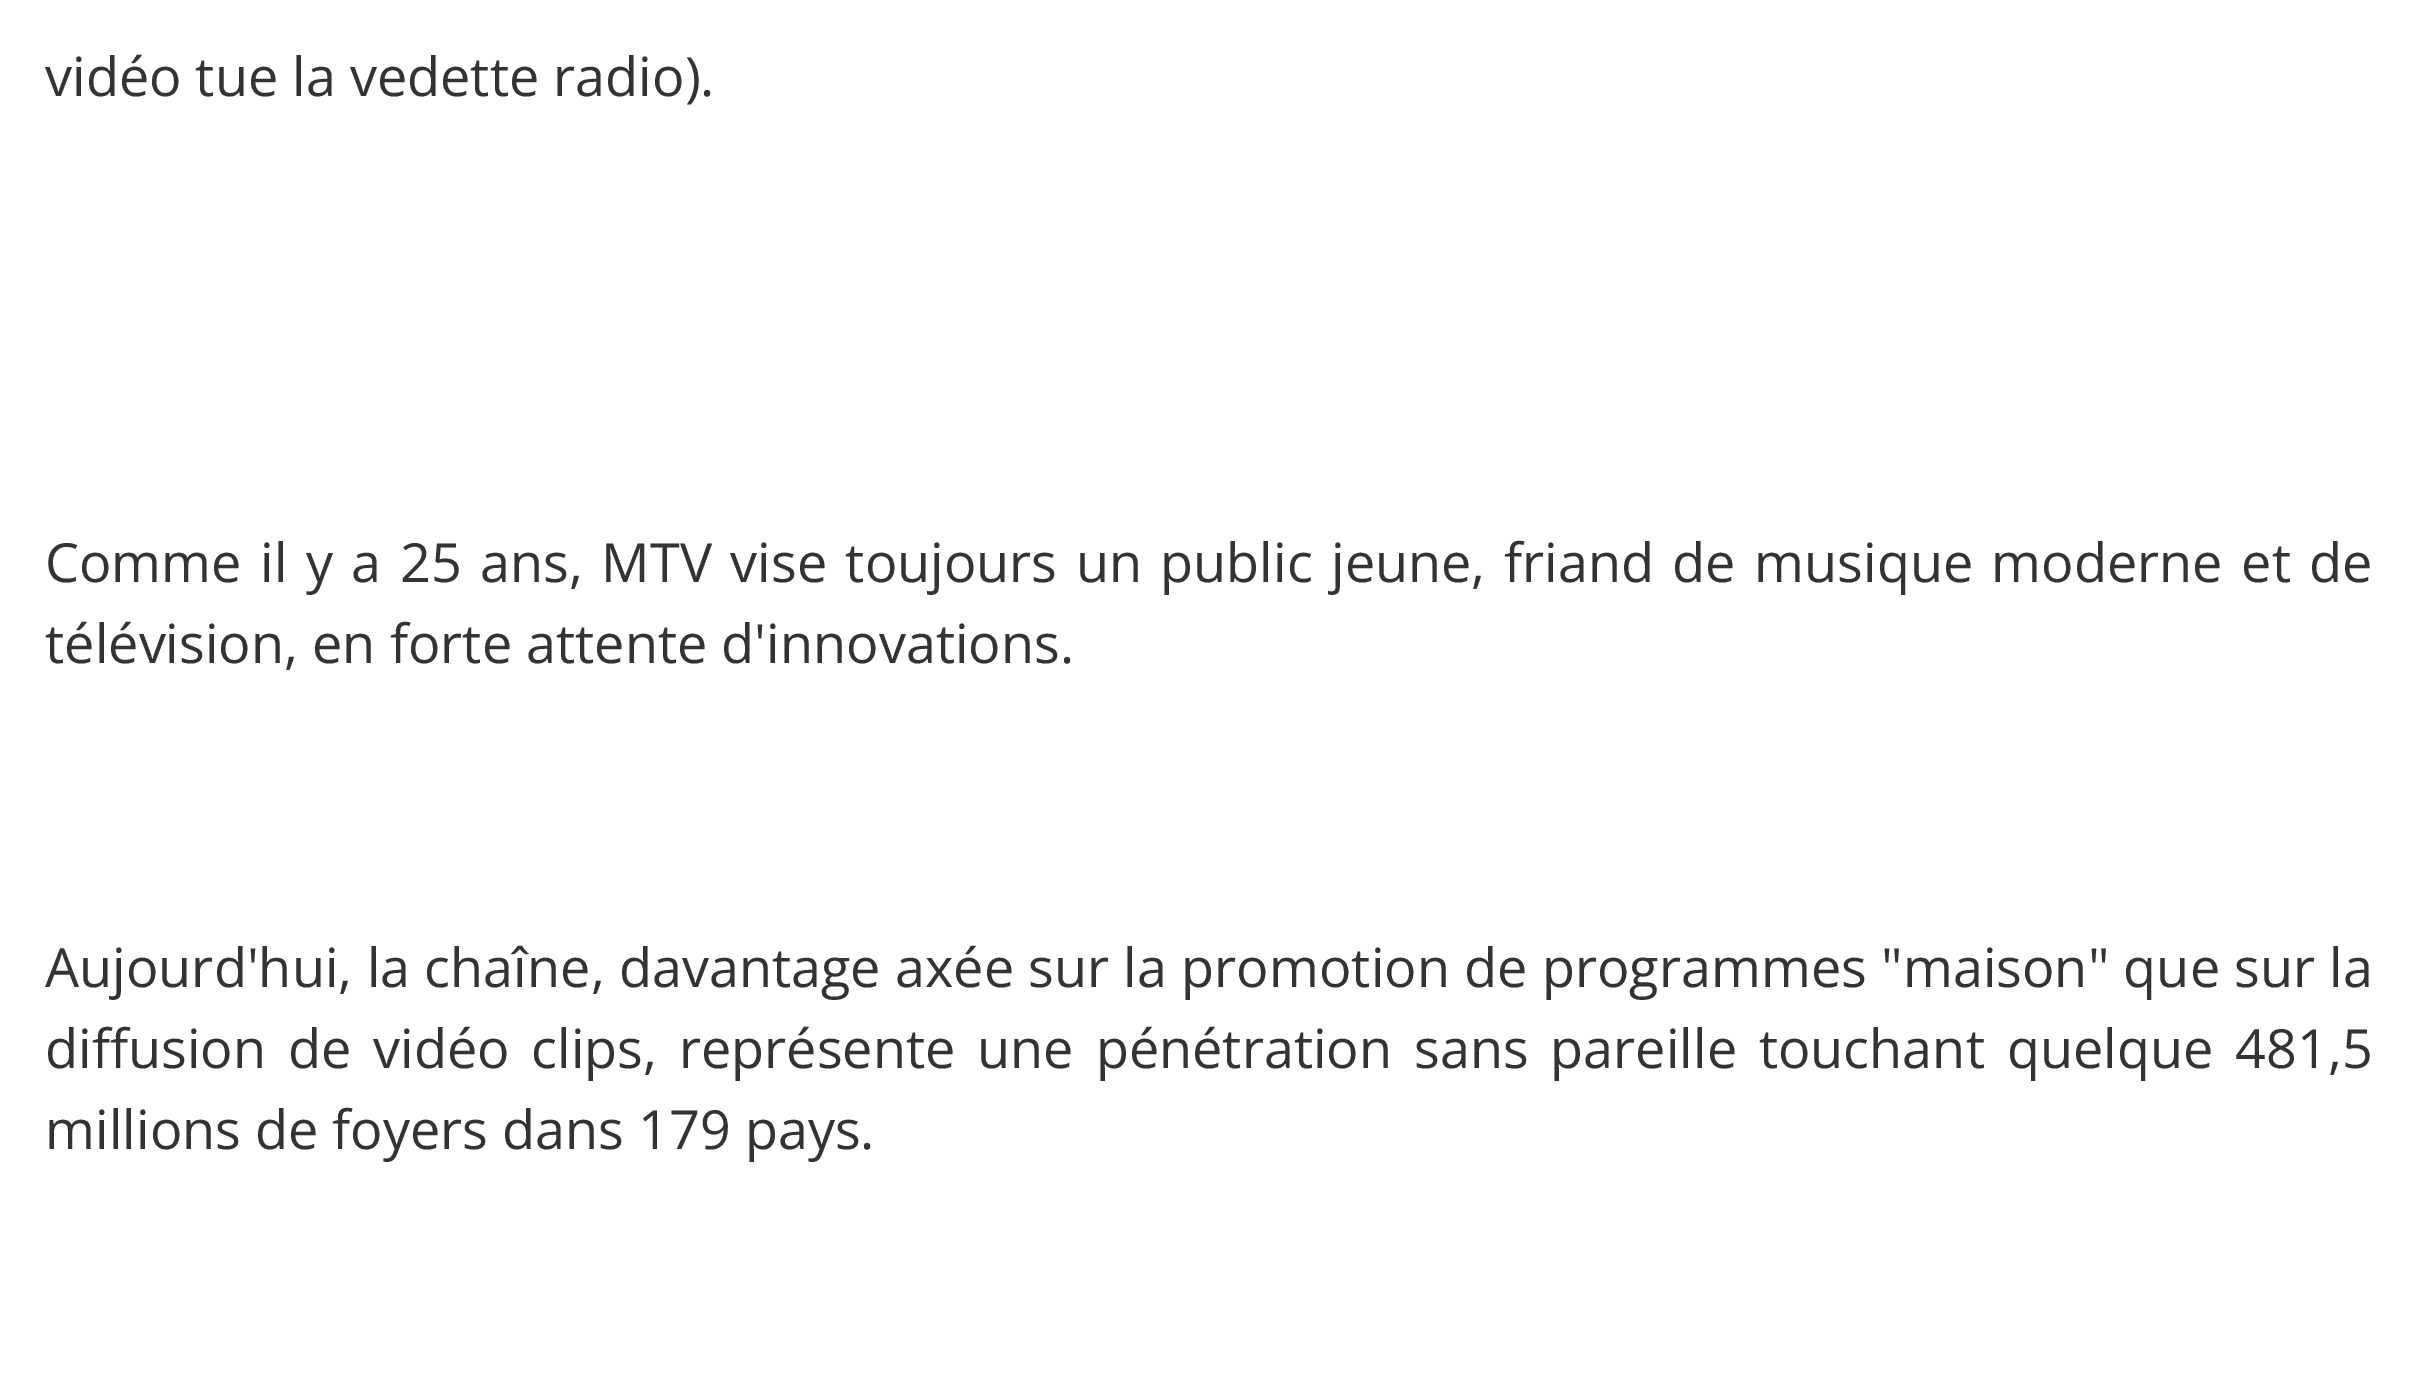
%!PS
<< /PageSize [2417 1387] >> setpagedevice
/rgb { 3 { 255 div 3 1 roll } repeat setrgbcolor } def
/font { [ exch dup neg 0 0 3 -1 roll 0 0 ] selectfont } def
/text { moveto show } def
0 1387 translate 1 -1 scale
4 setmiterlimit
255 255 255 rgb
0 0 2417 1387 rectfill
/OpenSans-Regular 54 font
51 51 51 rgb
(vidéo tue la vedette radio\).) 45 96 text
45 582 moveto 4.4 0 32 (Comme il y a 25 ans, MTV vise toujours un public jeune, friand de musique moderne et de) widthshow
(télévision, en forte attente d'innovations.) 45 663 text
45 987 moveto 0.25 0 32 (Aujourd'hui, la chaîne, davantage axée sur la promotion de programmes "maison" que sur la) widthshow
45 1068 moveto 7.75 0 32 (diffusion de vidéo clips, représente une pénétration sans pareille touchant quelque 481,5) widthshow
(millions de foyers dans 179 pays.) 45 1149 text
showpage
